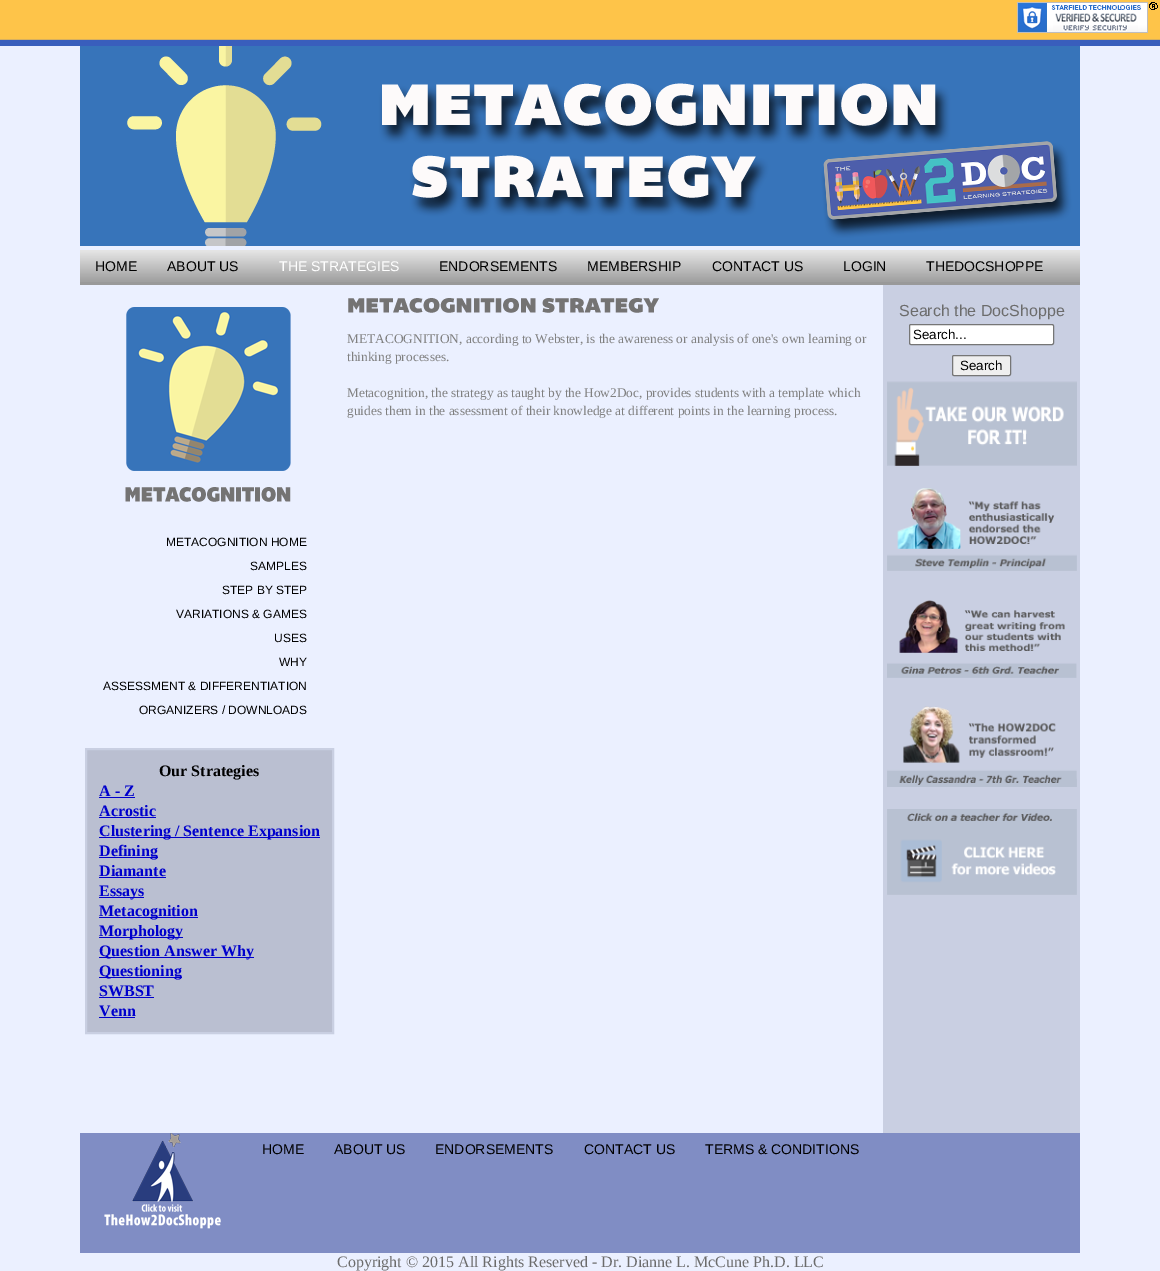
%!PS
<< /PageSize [1160 1271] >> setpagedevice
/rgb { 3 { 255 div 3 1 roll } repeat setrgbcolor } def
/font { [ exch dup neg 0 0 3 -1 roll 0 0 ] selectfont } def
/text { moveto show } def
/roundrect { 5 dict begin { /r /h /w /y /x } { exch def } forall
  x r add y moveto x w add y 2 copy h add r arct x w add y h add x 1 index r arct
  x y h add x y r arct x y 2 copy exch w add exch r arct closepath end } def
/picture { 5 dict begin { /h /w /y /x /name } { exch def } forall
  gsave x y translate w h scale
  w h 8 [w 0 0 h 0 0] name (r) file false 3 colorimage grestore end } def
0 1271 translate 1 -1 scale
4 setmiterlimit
235 240 255 rgb
0 0 1160 1271 rectfill
(img_01.rgb) 0 0 1160 46 picture
(img_02.rgb) 1017 2 141 31 picture
(img_03.rgb) 80 46 1000 200 picture
153 153 153 rgb
80 282 1000 3 rectfill
(img_04.rgb) 80 250 1000 32 picture
(img_05.rgb) 348 298 311 15 picture
201 207 226 rgb
883 285 197 848 rectfill
255 255 255 rgb
909.5 324.5 144 20 1.5 roundrect gsave fill grestore
118 118 118 rgb
stroke
239 239 239 rgb
952.5 355.5 58 20 1.5 roundrect gsave fill grestore
118 118 118 rgb
stroke
(img_06.rgb) 887 381 190 85 picture
(img_07.rgb) 887 488 190 83 picture
(img_08.rgb) 887 600 190 78 picture
(img_09.rgb) 887 706 190 81 picture
(img_10.rgb) 887 809 190 86 picture
(img_11.rgb) 125 307 166 195 picture
186 191 209 rgb
86 749 moveto 247 0 rlineto 0 284 rlineto -247 0 rlineto closepath gsave fill grestore
201 207 226 rgb
2 setlinewidth
stroke
0 0 204 rgb
99 797 36 1 rectfill
99 817 57 1 rectfill
99 837 221 1 rectfill
99 857 59 1 rectfill
99 877 67 1 rectfill
99 897 45 1 rectfill
99 917 99 1 rectfill
99 937 84 1 rectfill
99 957 155 1 rectfill
99 977 83 1 rectfill
99 997 55 1 rectfill
99 1017 36 1 rectfill
128 141 196 rgb
80 1133 1000 120 rectfill
(img_12.rgb) 104 1133 117 96 picture
/LiberationSans-Regular 14 font
0 0 0 rgb
(HOME) 95 271 text
(ABOUT US) 167 271 text
255 255 255 rgb
(THE STRATEGIES) 279 271 text
0 0 0 rgb
(ENDORSEMENTS) 439 271 text
(MEMBERSHIP) 587 271 text
(CONTACT US) 712 271 text
(LOGIN) 843 271 text
(THEDOCSHOPPE) 926 271 text
/LiberationSerif-Regular 13.35 font
128 128 128 rgb
(METACOGNITION, according to Webster, is the awareness or analysis of one's own learning or) 347 343 text
(thinking processes.) 347 361 text
(Metacognition, the strategy as taught by the How2Doc, provides students with a template which) 347 397 text
(guides them in the assessment of their knowledge at different points in the learning process.) 347 415 text
/LiberationSans-Regular 16 font
108 108 108 rgb
(Search the DocShoppe) 899 316 text
/LiberationSans-Regular 13.35 font
0 0 0 rgb
(Search...) 913 339 text
(Search) 960 370 text
/LiberationSans-Regular 12 font
(METACOGNITION HOME) 166 546 text
(SAMPLES) 250 570 text
(STEP BY STEP) 222 594 text
(VARIATIONS & GAMES) 176 618 text
(USES) 274 642 text
(WHY) 279 666 text
(ASSESSMENT & DIFFERENTIATION) 103 690 text
(ORGANIZERS / DOWNLOADS) 139 714 text
/LiberationSerif-Bold 16 font
(Our Strategies) 159 776 text
0 0 204 rgb
(A - Z) 99 796 text
(Acrostic) 99 816 text
(Clustering / Sentence Expansion) 99 836 text
(Defining) 99 856 text
(Diamante) 99 876 text
(Essays) 99 896 text
(Metacognition) 99 916 text
(Morphology) 99 936 text
(Question Answer Why) 99 956 text
(Questioning) 99 976 text
(SWBST) 99 996 text
(Venn) 99 1016 text
/LiberationSans-Regular 14 font
0 0 0 rgb
(HOME) 262 1154 text
(ABOUT US) 334 1154 text
(ENDORSEMENTS) 435 1154 text
(CONTACT US) 584 1154 text
(TERMS & CONDITIONS) 705 1154 text
/LiberationSerif-Regular 16 font
108 108 108 rgb
(Copyright © 2015 All Rights Reserved - Dr. Dianne L. McCune Ph.D. LLC) 337 1267 text
showpage
